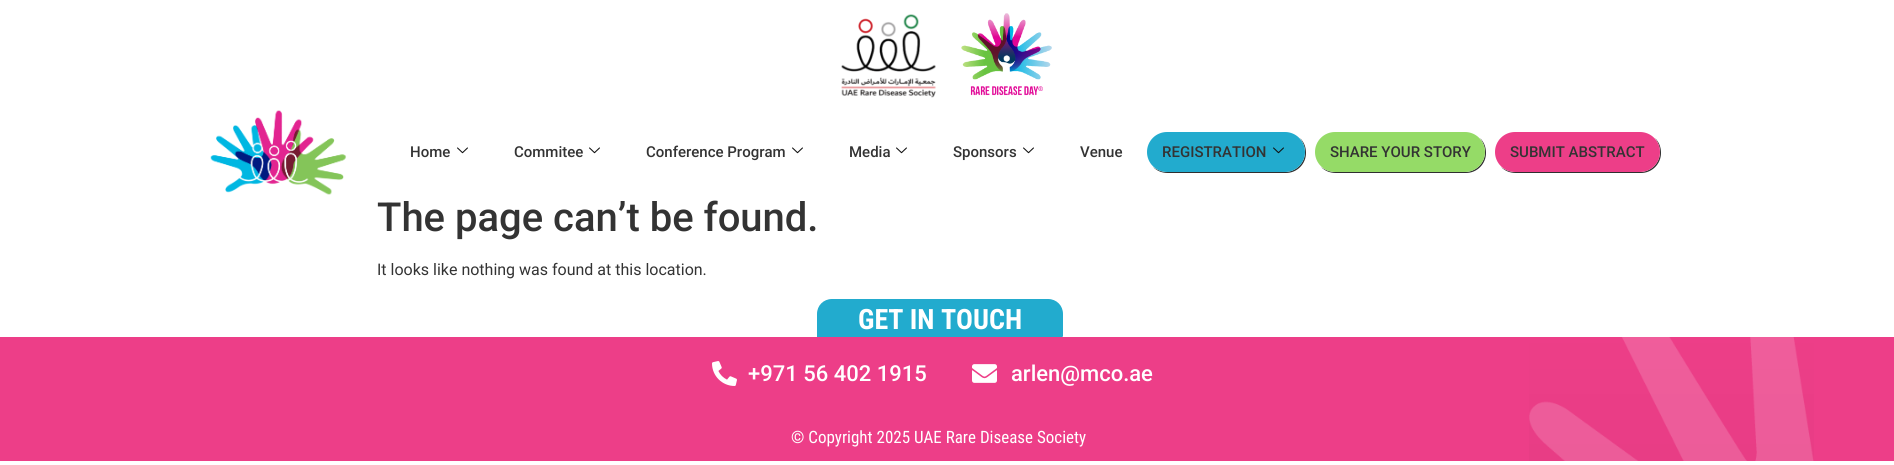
import math
import cairo

surface = cairo.ImageSurface(cairo.FORMAT_RGB24, 1894, 465)
ctx = cairo.Context(surface)
options = cairo.FontOptions()
options.set_hint_metrics(cairo.HINT_METRICS_OFF)
options.set_hint_style(cairo.HINT_STYLE_NONE)
ctx.set_font_options(options)
ctx.set_miter_limit(4)


def round_rect(x, y, w, h, r):
    ctx.new_sub_path()
    for i, (u, v) in enumerate([(x + w - r, y + h - r), (x + r, y + h - r), (x + r, y + r), (x + w - r, y + r)]):
        ctx.arc(u, v, r, i * math.pi / 2, (i + 1) * math.pi / 2)
    ctx.close_path()


def picture(path, x, y, w, h):
    ctx.save()
    ctx.set_source_surface(cairo.ImageSurface.create_from_png(path), x, y)
    ctx.rectangle(x, y, w, h)
    ctx.fill()
    ctx.restore()


ctx.set_source_rgb(1, 1, 1)
ctx.paint()
picture("img1.png", 841, 14, 95, 84)
picture("img2.png", 961, 13, 91, 83)
picture("img3.png", 210, 110, 137, 85)
ctx.select_font_face("Roboto Medium")
ctx.set_font_size(15)
ctx.set_source_rgb(0.2, 0.2, 0.2)
ctx.move_to(410, 157)
ctx.show_text("Home")
picture("img4.png", 457, 147, 11, 7)
ctx.move_to(514, 157)
ctx.show_text("Commitee")
picture("img4.png", 589, 147, 11, 7)
ctx.move_to(646, 157)
ctx.show_text("Conference Program")
picture("img4.png", 792, 147, 11, 7)
ctx.move_to(849, 157)
ctx.show_text("Media")
picture("img4.png", 896, 147, 11, 7)
ctx.move_to(953, 157)
ctx.show_text("Sponsors")
picture("img4.png", 1023, 147, 11, 7)
ctx.move_to(1080, 157)
ctx.show_text("Venue")
ctx.set_source_rgb(0.184, 0.184, 0.184)
ctx.new_path()
ctx.move_to(1153, 167)
ctx.curve_to(1157, 171, 1162, 173, 1168, 173)
ctx.line_to(1286, 173)
ctx.curve_to(1297, 173, 1306, 164, 1306, 153)
ctx.curve_to(1306, 147, 1304, 142, 1300, 138)
ctx.curve_to(1303, 142, 1305, 147, 1305, 152)
ctx.curve_to(1305, 163, 1296, 172, 1285, 172)
ctx.line_to(1167, 172)
ctx.curve_to(1162, 172, 1157, 170, 1153, 167)
ctx.close_path()
ctx.fill()
ctx.set_source_rgb(0.133, 0.671, 0.808)
round_rect(1147, 132, 158, 40, 20)
ctx.fill()
ctx.set_source_rgb(0.2, 0.2, 0.2)
ctx.move_to(1162, 157)
ctx.show_text("REGISTRATION")
picture("img5.png", 1273, 147, 11, 7)
ctx.set_source_rgb(0.184, 0.184, 0.184)
ctx.new_path()
ctx.move_to(1321, 167)
ctx.curve_to(1325, 171, 1330, 173, 1336, 173)
ctx.line_to(1466, 173)
ctx.curve_to(1477, 173, 1486, 164, 1486, 153)
ctx.curve_to(1486, 147, 1484, 142, 1480, 138)
ctx.curve_to(1483, 142, 1485, 147, 1485, 152)
ctx.curve_to(1485, 163, 1476, 172, 1465, 172)
ctx.line_to(1335, 172)
ctx.curve_to(1330, 172, 1325, 170, 1321, 167)
ctx.close_path()
ctx.fill()
ctx.set_source_rgb(0.584, 0.859, 0.404)
round_rect(1315, 132, 170, 40, 20)
ctx.fill()
ctx.set_source_rgb(0.2, 0.2, 0.2)
ctx.move_to(1330, 157)
ctx.show_text("SHARE YOUR STORY")
ctx.set_source_rgb(0.184, 0.184, 0.184)
ctx.new_path()
ctx.move_to(1501, 167)
ctx.curve_to(1505, 171, 1510, 173, 1516, 173)
ctx.line_to(1641, 173)
ctx.curve_to(1652, 173, 1661, 164, 1661, 153)
ctx.curve_to(1661, 147, 1659, 142, 1655, 138)
ctx.curve_to(1658, 142, 1660, 147, 1660, 152)
ctx.curve_to(1660, 163, 1651, 172, 1640, 172)
ctx.line_to(1515, 172)
ctx.curve_to(1510, 172, 1505, 170, 1501, 167)
ctx.close_path()
ctx.fill()
ctx.set_source_rgb(0.929, 0.243, 0.533)
round_rect(1495, 132, 165, 40, 20)
ctx.fill()
ctx.set_source_rgb(0.2, 0.2, 0.2)
ctx.move_to(1510, 157)
ctx.show_text("SUBMIT ABSTRACT")
ctx.set_font_size(40)
ctx.move_to(377, 231)
ctx.show_text("The page can’t be found.")
ctx.select_font_face("Roboto")
ctx.set_font_size(16)
ctx.move_to(377, 275)
ctx.show_text("It looks like nothing was found at this location.")
ctx.set_source_rgb(0.133, 0.671, 0.808)
ctx.new_path()
ctx.move_to(832, 299)
ctx.line_to(1048, 299)
ctx.curve_to(1056.5, 299, 1063, 305.5, 1063, 314)
ctx.line_to(1063, 336)
ctx.curve_to(1063, 336.5, 1062.5, 337, 1062, 337)
ctx.line_to(817, 337)
ctx.line_to(817, 314)
ctx.curve_to(817, 305.5, 823.5, 299, 832, 299)
ctx.close_path()
ctx.fill()
ctx.select_font_face("Roboto Condensed", cairo.FONT_SLANT_NORMAL, cairo.FONT_WEIGHT_BOLD)
ctx.set_font_size(28)
ctx.set_source_rgb(1, 1, 1)
ctx.move_to(858, 329)
ctx.show_text("GET IN TOUCH")
ctx.set_source_rgb(0.929, 0.243, 0.533)
ctx.rectangle(0, 337, 1894, 124)
ctx.fill()
picture("img6.png", 1529, 337, 285, 124)
picture("img7.png", 712, 361, 25, 25)
ctx.select_font_face("Roboto Medium")
ctx.set_font_size(22)
ctx.set_source_rgb(1, 1, 1)
ctx.move_to(748, 381)
ctx.show_text("+971 56 402 1915")
picture("img8.png", 972, 364, 25, 19)
ctx.move_to(1011, 381)
ctx.show_text("arlen@mco.ae")
ctx.select_font_face("Roboto Condensed")
ctx.set_font_size(17)
ctx.move_to(791, 443)
ctx.show_text("© Copyright 2025 UAE Rare Disease Society")
surface.write_to_png("page.png")
